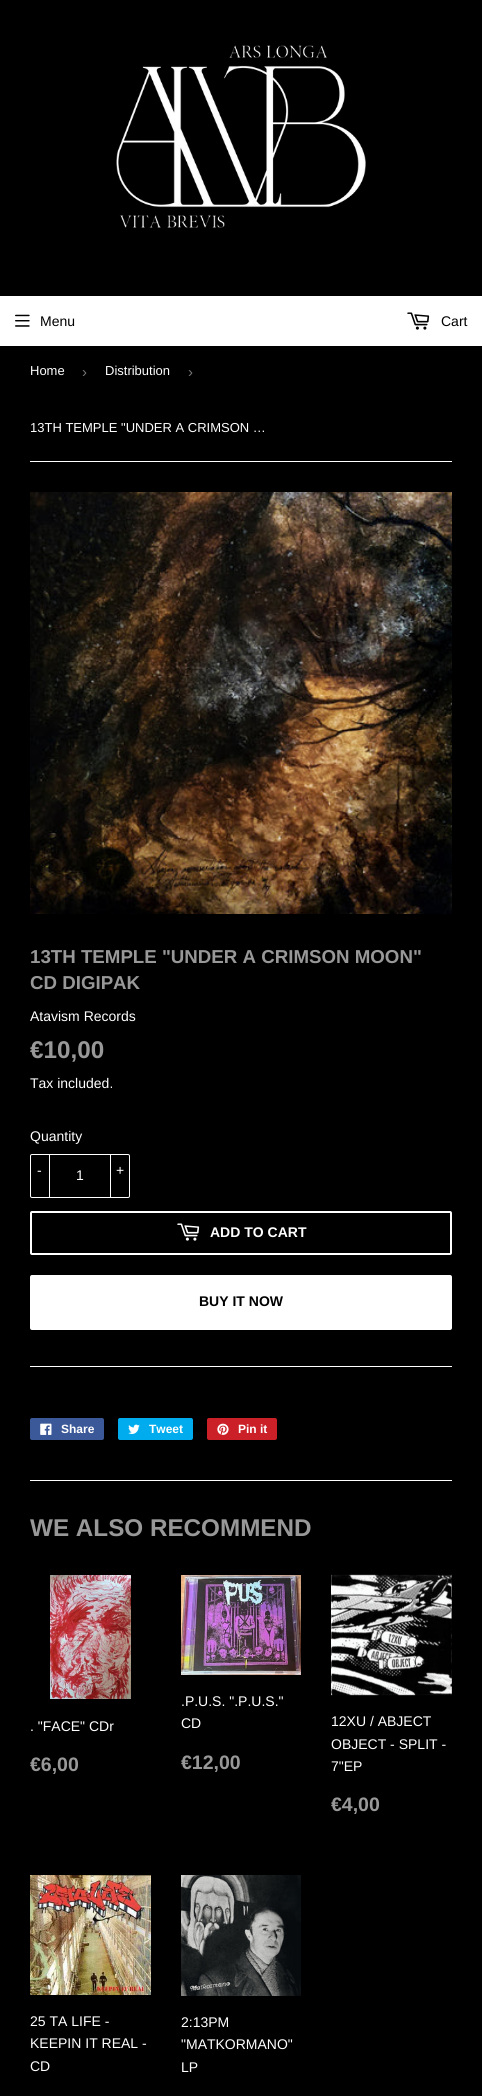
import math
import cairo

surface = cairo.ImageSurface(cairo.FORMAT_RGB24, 482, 2096)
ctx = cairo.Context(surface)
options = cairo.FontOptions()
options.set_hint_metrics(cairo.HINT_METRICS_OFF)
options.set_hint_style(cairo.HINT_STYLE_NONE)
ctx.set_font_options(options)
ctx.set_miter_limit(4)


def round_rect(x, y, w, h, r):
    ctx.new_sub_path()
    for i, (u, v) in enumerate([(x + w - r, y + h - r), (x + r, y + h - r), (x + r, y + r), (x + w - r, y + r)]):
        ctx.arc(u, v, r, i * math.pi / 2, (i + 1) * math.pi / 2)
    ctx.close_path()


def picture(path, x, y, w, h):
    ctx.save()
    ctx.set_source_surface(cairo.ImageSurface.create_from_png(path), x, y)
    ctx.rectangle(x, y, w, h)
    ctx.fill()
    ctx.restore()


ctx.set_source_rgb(0, 0, 0)
ctx.paint()
picture("img1.png", 116, 45, 250, 183)
ctx.set_source_rgb(1, 1, 1)
ctx.rectangle(0, 296, 482, 50)
ctx.fill()
picture("img2.png", 15, 314, 15, 13)
ctx.select_font_face("Liberation Sans")
ctx.set_font_size(14)
ctx.set_source_rgb(0, 0, 0)
ctx.move_to(40, 326)
ctx.show_text("Menu")
picture("img3.png", 407, 312, 23, 18)
ctx.move_to(441, 326)
ctx.show_text("Cart")
ctx.set_source_rgb(1, 1, 1)
ctx.rectangle(30, 461, 422, 1)
ctx.fill()
ctx.set_font_size(13)
ctx.move_to(30, 375)
ctx.show_text("Home")
ctx.set_font_size(15)
ctx.set_source_rgb(0.463, 0.463, 0.463)
ctx.move_to(82, 377)
ctx.show_text("›")
ctx.set_font_size(13)
ctx.set_source_rgb(1, 1, 1)
ctx.move_to(105, 375)
ctx.show_text("Distribution")
ctx.set_font_size(15)
ctx.set_source_rgb(0.463, 0.463, 0.463)
ctx.move_to(188, 377)
ctx.show_text("›")
ctx.set_font_size(13)
ctx.set_source_rgb(1, 1, 1)
ctx.move_to(30, 432)
ctx.show_text("13TH TEMPLE \"UNDER A CRIMSON …")
picture("img4.png", 30, 492, 422, 422)
ctx.select_font_face("Liberation Sans", cairo.FONT_SLANT_NORMAL, cairo.FONT_WEIGHT_BOLD)
ctx.set_font_size(18.7)
ctx.set_source_rgb(0.596, 0.596, 0.596)
ctx.move_to(30, 963)
ctx.show_text("13TH TEMPLE \"UNDER A CRIMSON MOON\"")
ctx.move_to(30, 989)
ctx.show_text("CD DIGIPAK")
ctx.select_font_face("Liberation Sans")
ctx.set_font_size(14)
ctx.set_source_rgb(1, 1, 1)
ctx.move_to(30, 1021)
ctx.show_text("Atavism Records")
ctx.select_font_face("Liberation Sans", cairo.FONT_SLANT_NORMAL, cairo.FONT_WEIGHT_BOLD)
ctx.set_font_size(24.25)
ctx.set_source_rgb(0.596, 0.596, 0.596)
ctx.move_to(30, 1058)
ctx.show_text("€10,00")
ctx.select_font_face("Liberation Sans")
ctx.set_font_size(14)
ctx.set_source_rgb(1, 1, 1)
ctx.move_to(30, 1088)
ctx.show_text("Tax included.")
ctx.move_to(30, 1141)
ctx.show_text("Quantity")
round_rect(30.5, 1154.5, 99, 43, 1.5)
ctx.set_line_width(1)
ctx.stroke()
ctx.rectangle(49, 1154, 1, 44)
ctx.fill()
ctx.move_to(37, 1175)
ctx.show_text("-")
ctx.move_to(76, 1180)
ctx.show_text("1")
ctx.rectangle(110, 1154, 1, 44)
ctx.fill()
ctx.move_to(116, 1175)
ctx.show_text("+")
round_rect(31, 1212, 420, 42, 1)
ctx.set_line_width(2)
ctx.stroke()
picture("img5.png", 177, 1223, 23, 18)
ctx.select_font_face("Liberation Sans", cairo.FONT_SLANT_NORMAL, cairo.FONT_WEIGHT_BOLD)
ctx.move_to(210, 1237)
ctx.show_text("ADD TO CART")
round_rect(30, 1275, 422, 55, 2)
ctx.fill()
ctx.set_source_rgb(0, 0, 0)
ctx.move_to(199, 1306)
ctx.show_text("BUY IT NOW")
ctx.set_source_rgb(1, 1, 1)
ctx.rectangle(30, 1366, 422, 1)
ctx.fill()
ctx.set_source_rgb(0.231, 0.349, 0.596)
round_rect(30, 1418, 74, 22, 2)
ctx.fill()
picture("img6.png", 40, 1423, 12, 12)
ctx.set_font_size(12)
ctx.set_source_rgb(1, 1, 1)
ctx.move_to(61, 1433)
ctx.show_text("Share")
ctx.set_source_rgb(0, 0.675, 0.929)
round_rect(118, 1418, 75, 22, 2)
ctx.fill()
picture("img7.png", 128, 1424, 12, 10)
ctx.set_source_rgb(1, 1, 1)
ctx.move_to(149, 1433)
ctx.show_text("Tweet")
ctx.set_source_rgb(0.796, 0.125, 0.153)
round_rect(207, 1418, 70, 22, 2)
ctx.fill()
picture("img8.png", 217, 1423, 12, 12)
ctx.set_source_rgb(1, 1, 1)
ctx.move_to(238, 1433)
ctx.show_text("Pin it")
ctx.rectangle(30, 1480, 422, 1)
ctx.fill()
ctx.set_font_size(24.25)
ctx.set_source_rgb(0.596, 0.596, 0.596)
ctx.move_to(30, 1536)
ctx.show_text("WE ALSO RECOMMEND")
picture("img9.png", 50, 1575, 81, 124)
ctx.select_font_face("Liberation Sans")
ctx.set_font_size(14)
ctx.set_source_rgb(1, 1, 1)
ctx.move_to(30, 1731)
ctx.show_text(". \"FACE\" CDr")
ctx.select_font_face("Liberation Sans", cairo.FONT_SLANT_NORMAL, cairo.FONT_WEIGHT_BOLD)
ctx.set_font_size(19.5)
ctx.set_source_rgb(0.596, 0.596, 0.596)
ctx.move_to(30, 1771)
ctx.show_text("€6,00")
picture("img10.png", 181, 1575, 120, 100)
ctx.select_font_face("Liberation Sans")
ctx.set_font_size(14)
ctx.set_source_rgb(1, 1, 1)
ctx.move_to(181, 1706)
ctx.show_text(".P.U.S. \".P.U.S.\"")
ctx.move_to(181, 1728)
ctx.show_text("CD")
ctx.select_font_face("Liberation Sans", cairo.FONT_SLANT_NORMAL, cairo.FONT_WEIGHT_BOLD)
ctx.set_font_size(19.5)
ctx.set_source_rgb(0.596, 0.596, 0.596)
ctx.move_to(181, 1769)
ctx.show_text("€12,00")
picture("img11.png", 331, 1574, 121, 122)
ctx.select_font_face("Liberation Sans")
ctx.set_font_size(14)
ctx.set_source_rgb(1, 1, 1)
ctx.move_to(331, 1726)
ctx.show_text("12XU / ABJECT")
ctx.move_to(331, 1749)
ctx.show_text("OBJECT - SPLIT -")
ctx.move_to(331, 1771)
ctx.show_text("7\"EP")
ctx.select_font_face("Liberation Sans", cairo.FONT_SLANT_NORMAL, cairo.FONT_WEIGHT_BOLD)
ctx.set_font_size(19.5)
ctx.set_source_rgb(0.596, 0.596, 0.596)
ctx.move_to(331, 1811)
ctx.show_text("€4,00")
picture("img12.png", 30, 1875, 121, 120)
ctx.select_font_face("Liberation Sans")
ctx.set_font_size(14)
ctx.set_source_rgb(1, 1, 1)
ctx.move_to(30, 2026)
ctx.show_text("25 TA LIFE -")
ctx.move_to(30, 2048)
ctx.show_text("KEEPIN IT REAL -")
ctx.move_to(30, 2071)
ctx.show_text("CD")
picture("img13.png", 181, 1875, 120, 121)
ctx.move_to(181, 2027)
ctx.show_text("2:13PM")
ctx.move_to(181, 2049)
ctx.show_text("\"MATKORMANO\"")
ctx.move_to(181, 2072)
ctx.show_text("LP")
surface.write_to_png("page.png")
